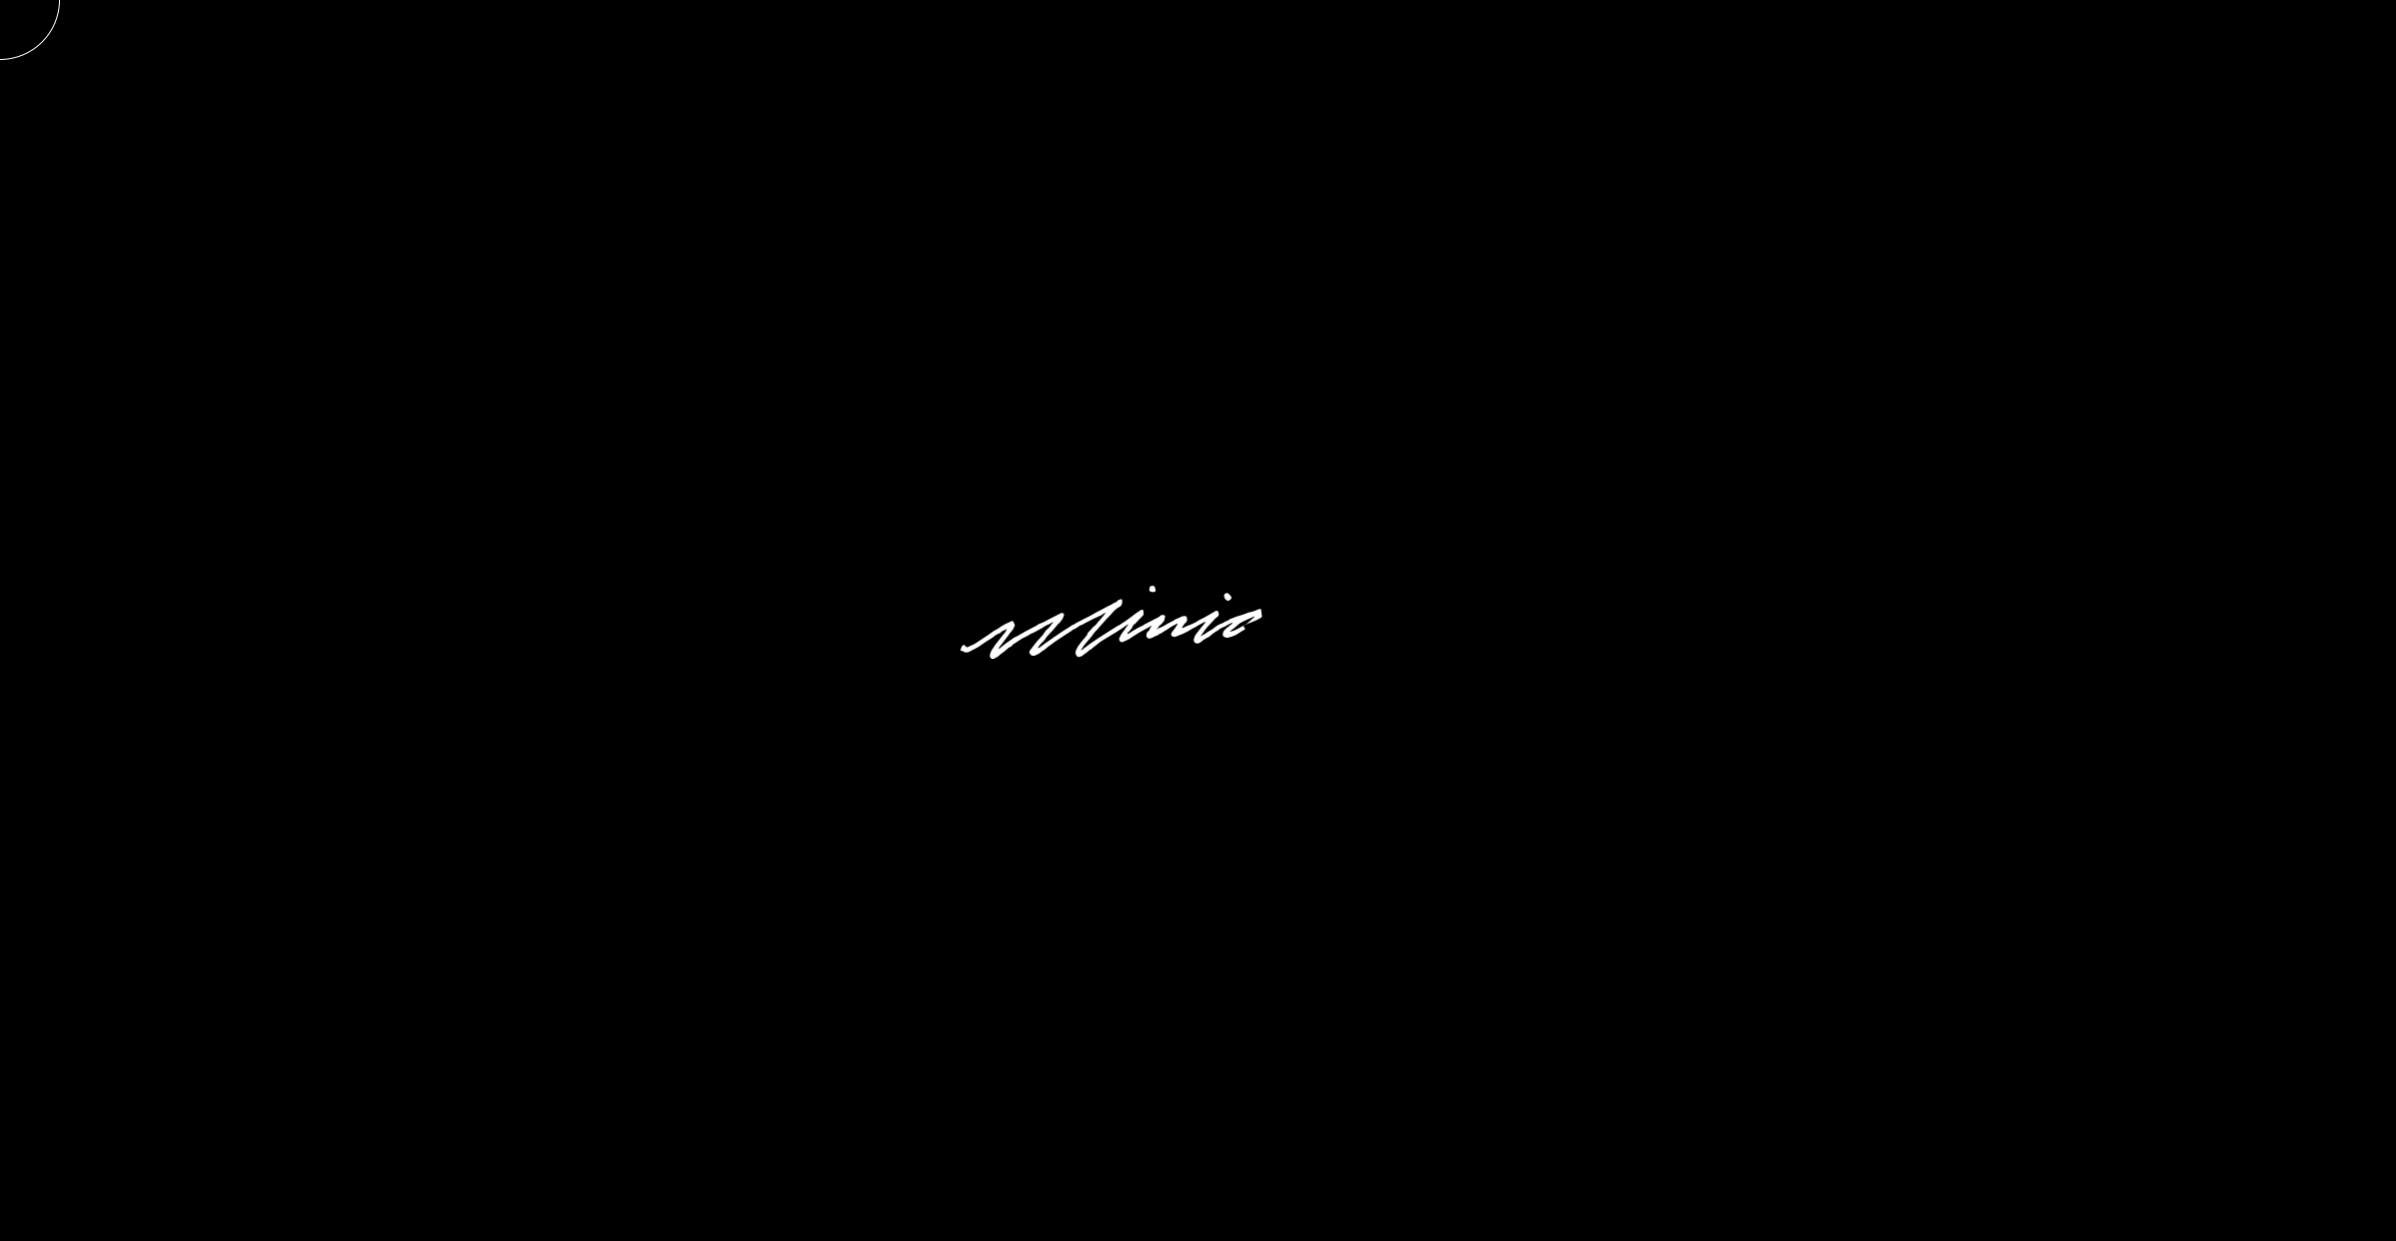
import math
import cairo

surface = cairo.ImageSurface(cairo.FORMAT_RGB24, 2396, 1241)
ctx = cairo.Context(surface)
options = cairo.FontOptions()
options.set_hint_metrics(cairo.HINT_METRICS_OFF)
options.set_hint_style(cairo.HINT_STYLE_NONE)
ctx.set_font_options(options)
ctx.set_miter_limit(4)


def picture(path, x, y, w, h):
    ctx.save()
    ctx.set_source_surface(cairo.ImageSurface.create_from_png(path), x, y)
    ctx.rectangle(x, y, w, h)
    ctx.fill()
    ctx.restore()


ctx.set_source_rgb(0, 0, 0)
ctx.paint()
ctx.arc(0, 0, 59.5, 0, 2 * math.pi)
ctx.set_source_rgb(1, 1, 1)
ctx.set_line_width(1)
ctx.stroke()
picture("img1.png", 960, 585, 303, 74)
surface.write_to_png("page.png")
